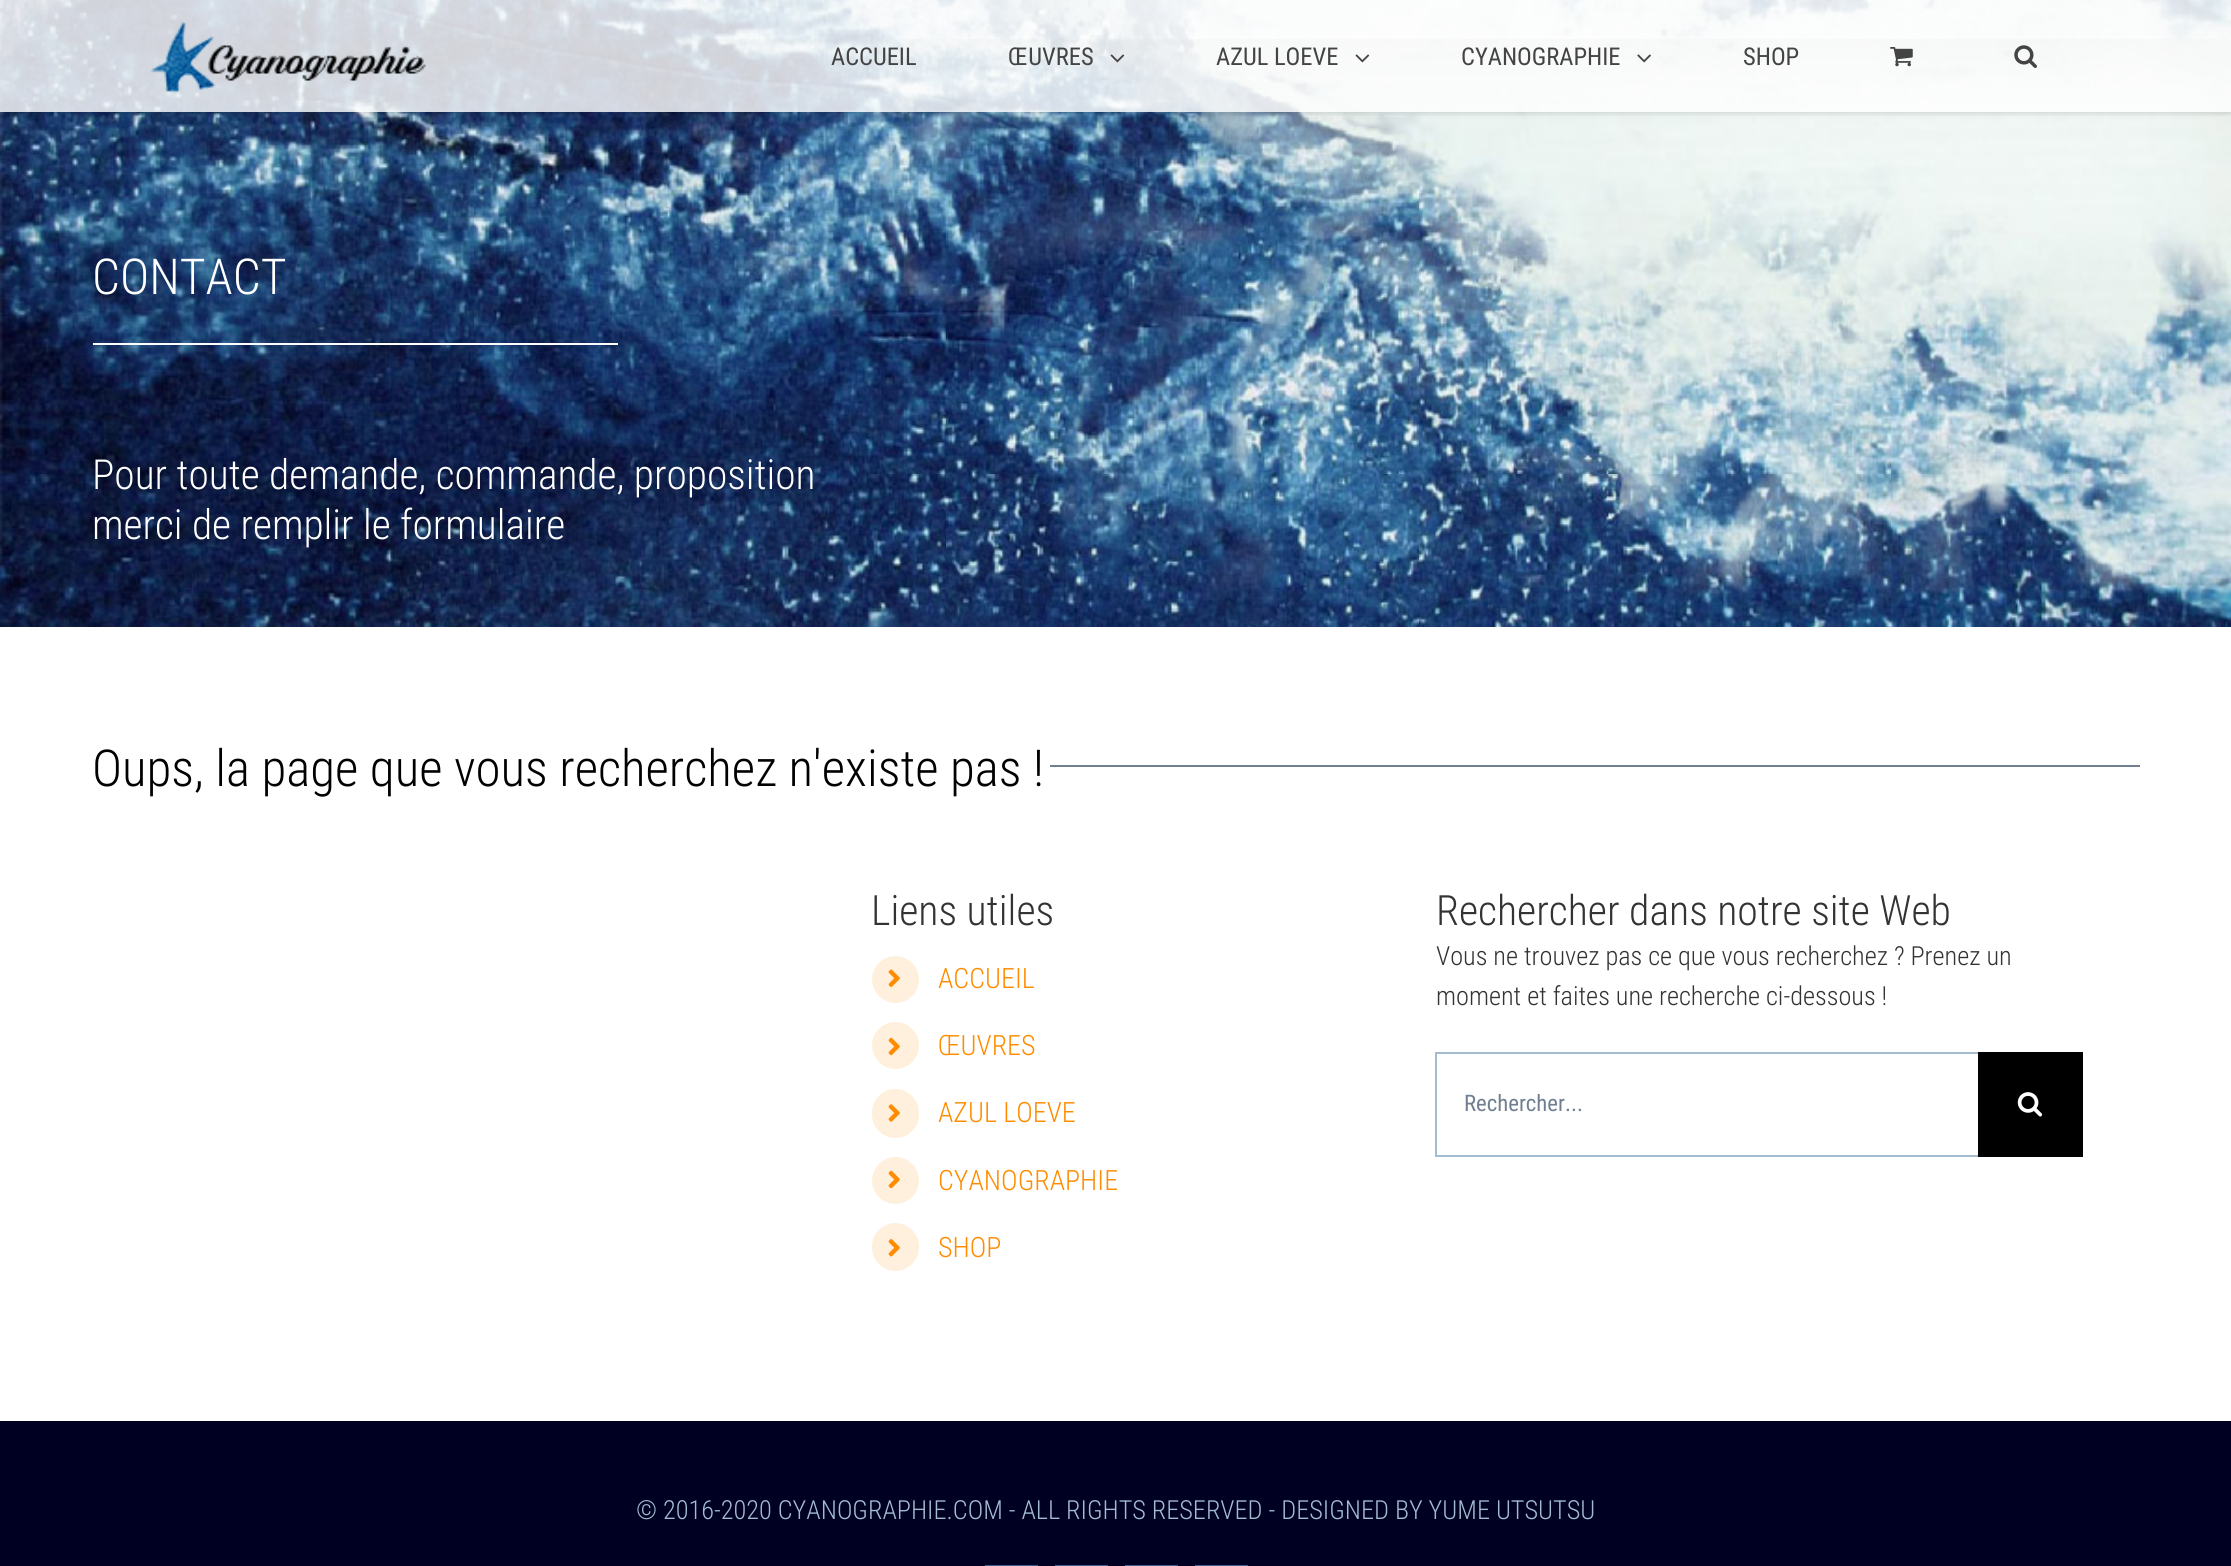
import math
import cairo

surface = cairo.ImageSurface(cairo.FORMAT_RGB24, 2231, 1566)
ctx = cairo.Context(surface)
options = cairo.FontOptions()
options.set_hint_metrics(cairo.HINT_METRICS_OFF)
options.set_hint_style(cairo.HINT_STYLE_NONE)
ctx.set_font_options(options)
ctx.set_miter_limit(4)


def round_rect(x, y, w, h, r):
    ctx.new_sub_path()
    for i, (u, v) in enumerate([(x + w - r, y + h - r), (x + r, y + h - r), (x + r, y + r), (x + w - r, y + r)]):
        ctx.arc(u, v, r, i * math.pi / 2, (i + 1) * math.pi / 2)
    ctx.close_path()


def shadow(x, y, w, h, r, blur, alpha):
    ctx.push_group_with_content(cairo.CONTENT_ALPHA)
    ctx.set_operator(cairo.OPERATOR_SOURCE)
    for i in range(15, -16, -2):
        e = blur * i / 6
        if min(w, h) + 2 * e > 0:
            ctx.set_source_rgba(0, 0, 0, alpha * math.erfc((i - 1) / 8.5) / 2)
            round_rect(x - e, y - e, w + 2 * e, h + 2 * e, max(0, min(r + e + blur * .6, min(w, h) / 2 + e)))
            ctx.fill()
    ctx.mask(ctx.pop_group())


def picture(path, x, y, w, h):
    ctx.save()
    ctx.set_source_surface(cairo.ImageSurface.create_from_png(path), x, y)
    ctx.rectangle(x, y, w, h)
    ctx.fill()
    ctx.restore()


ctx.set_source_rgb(1, 1, 1)
ctx.paint()
picture("img7.png", 0, 0, 2231, 627)
ctx.save()
ctx.set_fill_rule(cairo.FILL_RULE_EVEN_ODD)
ctx.new_path()
ctx.move_to(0, 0)
ctx.line_to(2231, 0)
ctx.line_to(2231, 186)
ctx.line_to(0, 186)
ctx.close_path()
ctx.move_to(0, -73)
ctx.line_to(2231, -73)
ctx.line_to(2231, 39)
ctx.line_to(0, 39)
ctx.close_path()
ctx.clip()
ctx.set_source_rgb(0, 0, 0)
shadow(4, -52, 2224, 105, 0, 44, 0.14)
ctx.restore()
ctx.save()
ctx.rectangle(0, 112, 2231, 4)
ctx.clip()
ctx.set_source_rgb(0, 0, 0)
shadow(0, 2, 2231, 112, 0, 2.5, 0.12)
ctx.restore()
ctx.set_source_rgba(1, 1, 1, 0.81)
ctx.rectangle(0, 0, 2231, 112)
ctx.fill()
picture("img1.png", 150, 21, 276, 72)
ctx.select_font_face("Roboto Condensed")
ctx.set_font_size(24.5)
ctx.set_source_rgb(0.267, 0.267, 0.267)
ctx.move_to(831, 65)
ctx.show_text("ACCUEIL")
ctx.move_to(1008, 65)
ctx.show_text("ŒUVRES")
picture("img2.png", 1110, 54, 15, 9)
ctx.move_to(1216, 65)
ctx.show_text("AZUL LOEVE")
picture("img3.png", 1355, 54, 15, 9)
ctx.move_to(1461, 65)
ctx.show_text("CYANOGRAPHIE")
picture("img4.png", 1637, 54, 14, 9)
ctx.move_to(1743, 65)
ctx.show_text("SHOP")
picture("img5.png", 1890, 47, 23, 20)
picture("img6.png", 2014, 45, 23, 23)
ctx.select_font_face("Roboto Condensed Light")
ctx.set_font_size(49.5)
ctx.set_source_rgb(1, 1, 1)
ctx.move_to(92, 294)
ctx.show_text("CONTACT")
ctx.rectangle(93, 343, 525, 2)
ctx.fill()
ctx.set_font_size(41.4)
ctx.move_to(92, 489)
ctx.show_text("Pour toute demande, commande, proposition")
ctx.move_to(92, 539)
ctx.show_text("merci de remplir le formulaire")
ctx.set_font_size(50.9)
ctx.set_source_rgb(0, 0, 0)
ctx.move_to(92, 786)
ctx.show_text("Oups, la page que vous recherchez n'existe pas !")
ctx.set_source_rgb(0.439, 0.502, 0.565)
ctx.rectangle(1050, 765, 1090, 2)
ctx.fill()
ctx.set_font_size(41.75)
ctx.set_source_rgb(0.2, 0.2, 0.2)
ctx.move_to(871, 925)
ctx.show_text("Liens utiles")
ctx.set_source_rgb(1, 0.941, 0.871)
ctx.new_path()
ctx.arc(895.5, 979.5, 23.5, 0, 2 * math.pi)
ctx.fill()
picture("img8.png", 888, 969, 12, 18)
ctx.set_font_size(28)
ctx.set_source_rgb(1, 0.549, 0)
ctx.move_to(938, 988)
ctx.show_text("ACCUEIL")
ctx.set_source_rgb(1, 0.941, 0.871)
ctx.new_path()
ctx.arc(895.5, 1045.5, 23.5, 0, 2 * math.pi)
ctx.fill()
picture("img9.png", 888, 1037, 12, 19)
ctx.set_source_rgb(1, 0.549, 0)
ctx.move_to(938, 1055)
ctx.show_text("ŒUVRES")
ctx.set_source_rgb(1, 0.941, 0.871)
round_rect(872, 1089, 47, 49, 23.5)
ctx.fill()
picture("img10.png", 888, 1104, 12, 18)
ctx.set_source_rgb(1, 0.549, 0)
ctx.move_to(938, 1122)
ctx.show_text("AZUL LOEVE")
ctx.set_source_rgb(1, 0.941, 0.871)
ctx.new_path()
ctx.arc(895.5, 1180.5, 23.5, 0, 2 * math.pi)
ctx.fill()
picture("img9.png", 888, 1170, 12, 19)
ctx.set_source_rgb(1, 0.549, 0)
ctx.move_to(938, 1190)
ctx.show_text("CYANOGRAPHIE")
ctx.set_source_rgb(1, 0.941, 0.871)
round_rect(872, 1223, 47, 48, 23.5)
ctx.fill()
picture("img11.png", 888, 1239, 12, 18)
ctx.set_source_rgb(1, 0.549, 0)
ctx.move_to(938, 1257)
ctx.show_text("SHOP")
ctx.set_font_size(41.75)
ctx.set_source_rgb(0.2, 0.2, 0.2)
ctx.move_to(1436, 925)
ctx.show_text("Rechercher dans notre site Web")
ctx.set_font_size(26.25)
ctx.move_to(1436, 965)
ctx.show_text("Vous ne trouvez pas ce que vous recherchez ? Prenez un")
ctx.move_to(1436, 1005)
ctx.show_text("moment et faites une recherche ci-dessous !")
ctx.set_source_rgb(0.639, 0.737, 0.82)
ctx.rectangle(1435, 1052, 543, 2)
ctx.fill()
ctx.rectangle(1435, 1155, 543, 2)
ctx.fill()
ctx.rectangle(1435, 1052, 2, 105)
ctx.fill()
ctx.select_font_face("Roboto Condensed")
ctx.set_font_size(22.75)
ctx.set_source_rgb(0.439, 0.502, 0.565)
ctx.move_to(1464, 1111)
ctx.show_text("Rechercher...")
ctx.set_source_rgb(0, 0, 0)
ctx.rectangle(1978, 1052, 105, 105)
ctx.fill()
picture("img12.png", 2017, 1092, 26, 25)
ctx.set_source_rgb(0, 0, 0.133)
ctx.rectangle(0, 1421, 2231, 145)
ctx.fill()
ctx.select_font_face("Roboto Condensed Light")
ctx.set_font_size(26.25)
ctx.set_source_rgb(0.639, 0.737, 0.82)
ctx.move_to(636, 1519)
ctx.show_text("© 2016-2020 CYANOGRAPHIE.COM - ALL RIGHTS RESERVED - DESIGNED BY YUME UTSUTSU")
ctx.rectangle(986, 1566, 51, 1)
ctx.set_source_rgb(0.204, 0.376, 0.557)
ctx.stroke()
ctx.rectangle(1056, 1566, 51, 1)
ctx.stroke()
ctx.rectangle(1126, 1566, 51, 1)
ctx.stroke()
ctx.rectangle(1196, 1566, 51, 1)
ctx.stroke()
surface.write_to_png("page.png")
